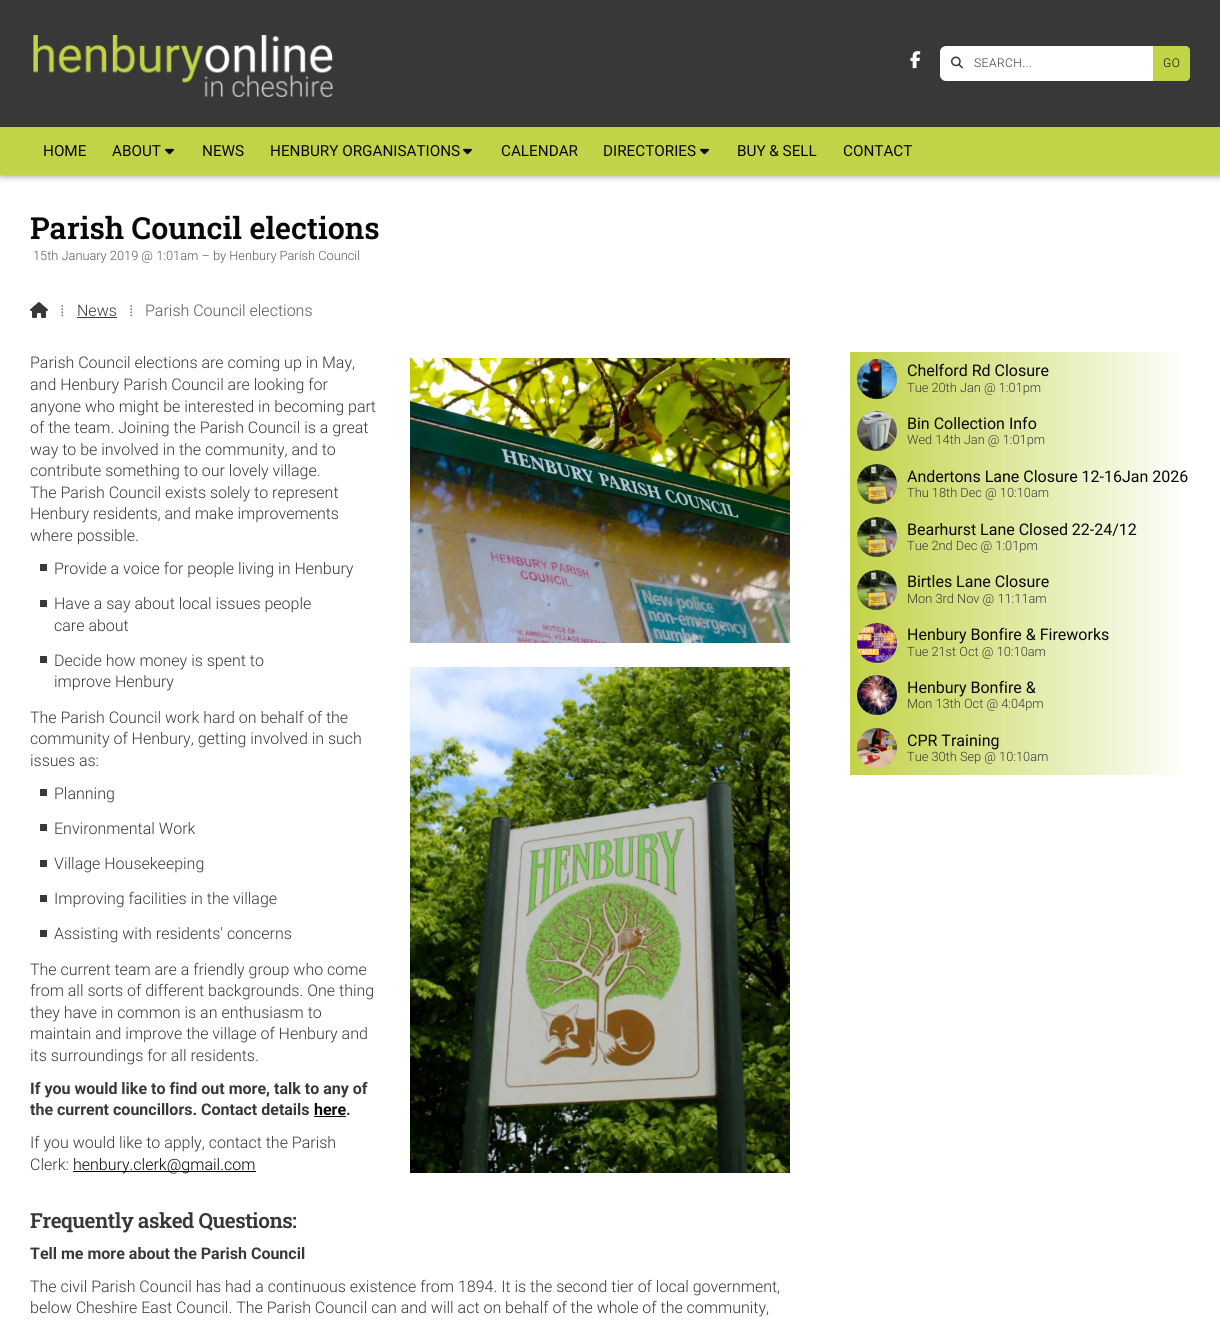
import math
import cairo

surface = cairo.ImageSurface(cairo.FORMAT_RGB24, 1220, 1328)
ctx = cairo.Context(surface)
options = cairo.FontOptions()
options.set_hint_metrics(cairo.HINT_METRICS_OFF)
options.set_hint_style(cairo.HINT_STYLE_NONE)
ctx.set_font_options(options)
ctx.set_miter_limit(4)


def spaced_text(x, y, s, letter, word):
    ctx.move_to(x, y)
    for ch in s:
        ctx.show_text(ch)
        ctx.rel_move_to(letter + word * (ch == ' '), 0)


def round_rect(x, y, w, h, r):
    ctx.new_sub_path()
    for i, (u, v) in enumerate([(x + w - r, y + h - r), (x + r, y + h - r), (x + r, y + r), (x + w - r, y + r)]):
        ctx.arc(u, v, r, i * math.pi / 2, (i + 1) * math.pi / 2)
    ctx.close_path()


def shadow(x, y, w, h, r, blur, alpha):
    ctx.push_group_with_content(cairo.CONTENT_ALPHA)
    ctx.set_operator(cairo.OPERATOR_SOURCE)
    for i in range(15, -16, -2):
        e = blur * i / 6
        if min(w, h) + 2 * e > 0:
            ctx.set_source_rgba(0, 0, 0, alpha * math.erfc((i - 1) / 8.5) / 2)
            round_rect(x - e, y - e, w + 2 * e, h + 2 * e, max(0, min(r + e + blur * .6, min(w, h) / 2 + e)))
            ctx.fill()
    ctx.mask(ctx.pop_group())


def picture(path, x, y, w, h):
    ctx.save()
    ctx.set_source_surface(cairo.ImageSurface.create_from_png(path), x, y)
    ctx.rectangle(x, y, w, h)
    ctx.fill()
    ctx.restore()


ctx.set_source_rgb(1, 1, 1)
ctx.paint()
ctx.set_source_rgb(0, 0, 0)
shadow(0, 0, 1220, 175, 0, 4, 0.5)
ctx.set_source_rgb(0.22, 0.22, 0.22)
ctx.rectangle(0, 0, 1220, 127)
ctx.fill()
picture("img1.png", 33, 35, 300, 62)
picture("img2.png", 910, 51, 11, 18)
ctx.set_source_rgb(1, 1, 1)
round_rect(940, 46, 250, 35, 6)
ctx.fill()
picture("img3.png", 951, 56, 12, 13)
ctx.select_font_face("Roboto Light")
ctx.set_font_size(12)
ctx.set_source_rgb(0.22, 0.22, 0.22)
spaced_text(974, 67, "SEARCH...", 0.5, 0)
ctx.set_source_rgb(0.761, 0.827, 0.278)
ctx.new_path()
ctx.move_to(1153, 46)
ctx.line_to(1186, 46)
ctx.curve_to(1188, 46, 1190, 48, 1190, 50)
ctx.line_to(1190, 77)
ctx.curve_to(1190, 79, 1188, 81, 1186, 81)
ctx.line_to(1153, 81)
ctx.close_path()
ctx.fill()
ctx.set_source_rgb(0.035, 0.035, 0.035)
spaced_text(1163, 67, "GO", 0.5, 0)
ctx.set_source_rgb(0.761, 0.827, 0.278)
ctx.rectangle(0, 127, 1220, 48)
ctx.fill()
ctx.select_font_face("Roboto")
ctx.set_font_size(15.25)
ctx.set_source_rgb(0.035, 0.035, 0.035)
ctx.move_to(43, 156)
ctx.show_text("HOME")
ctx.move_to(112, 156)
ctx.show_text("ABOUT")
picture("img4.png", 165, 148, 9, 7)
ctx.move_to(202, 156)
ctx.show_text("NEWS")
ctx.move_to(270, 156)
ctx.show_text("HENBURY ORGANISATIONS")
picture("img4.png", 463, 148, 9, 7)
ctx.move_to(501, 156)
ctx.show_text("CALENDAR")
ctx.move_to(603, 156)
ctx.show_text("DIRECTORIES")
picture("img4.png", 700, 148, 9, 7)
ctx.move_to(737, 156)
ctx.show_text("BUY & SELL")
ctx.move_to(843, 156)
ctx.show_text("CONTACT")
ctx.select_font_face("Roboto Slab SemiBold")
ctx.set_font_size(30.4)
ctx.move_to(30, 239)
ctx.show_text("Parish Council elections")
ctx.select_font_face("Roboto Light")
ctx.set_font_size(12.8)
ctx.set_source_rgb(0.349, 0.349, 0.349)
ctx.move_to(33, 260)
ctx.show_text("15th January 2019 @ 1:01am – by Henbury Parish Council")
picture("img5.png", 30, 302, 18, 16)
ctx.select_font_face("Liberation Serif")
ctx.set_font_size(16)
ctx.set_source_rgb(0.514, 0.514, 0.514)
ctx.move_to(60, 316)
ctx.show_text("⁞")
ctx.select_font_face("Roboto Light")
ctx.set_source_rgb(0.22, 0.22, 0.22)
ctx.move_to(77, 316)
ctx.show_text("News")
ctx.rectangle(77, 317, 40, 1)
ctx.fill()
ctx.select_font_face("Liberation Serif")
ctx.set_source_rgb(0.514, 0.514, 0.514)
ctx.move_to(129, 316)
ctx.show_text("⁞")
ctx.select_font_face("Roboto Light")
ctx.set_source_rgb(0.349, 0.349, 0.349)
ctx.move_to(145, 316)
ctx.show_text("Parish Council elections")
ctx.set_source_rgb(0.22, 0.22, 0.22)
ctx.move_to(30, 368)
ctx.show_text("Parish Council elections are coming up in May,")
ctx.move_to(30, 390)
ctx.show_text("and Henbury Parish Council are looking for")
ctx.move_to(30, 412)
ctx.show_text("anyone who might be interested in becoming part")
ctx.move_to(30, 433)
ctx.show_text("of the team. Joining the Parish Council is a great")
ctx.move_to(30, 455)
ctx.show_text("way to be involved in the community, and to")
ctx.move_to(30, 476)
ctx.show_text("contribute something to our lovely village.")
ctx.move_to(30, 498)
ctx.show_text("The Parish Council exists solely to represent")
ctx.move_to(30, 519)
ctx.show_text("Henbury residents, and make improvements")
ctx.move_to(30, 541)
ctx.show_text("where possible.")
picture("img6.png", 410, 358, 380, 285)
picture("img7.png", 410, 667, 380, 506)
ctx.rectangle(40, 564, 7, 7)
ctx.fill()
ctx.move_to(54, 574)
ctx.show_text("Provide a voice for people living in Henbury")
ctx.rectangle(40, 600, 7, 7)
ctx.fill()
ctx.move_to(54, 609)
ctx.show_text("Have a say about local issues people")
ctx.move_to(54, 631)
ctx.show_text("care about")
ctx.rectangle(40, 656, 7, 7)
ctx.fill()
ctx.move_to(54, 666)
ctx.show_text("Decide how money is spent to")
ctx.move_to(54, 687)
ctx.show_text("improve Henbury")
ctx.move_to(30, 723)
ctx.show_text("The Parish Council work hard on behalf of the")
ctx.move_to(30, 744)
ctx.show_text("community of Henbury, getting involved in such")
ctx.move_to(30, 766)
ctx.show_text("issues as:")
ctx.rectangle(40, 789, 7, 7)
ctx.fill()
ctx.move_to(54, 799)
ctx.show_text("Planning")
ctx.rectangle(40, 824, 7, 7)
ctx.fill()
ctx.move_to(54, 834)
ctx.show_text("Environmental Work")
ctx.rectangle(40, 860, 7, 7)
ctx.fill()
ctx.move_to(54, 869)
ctx.show_text("Village Housekeeping")
ctx.rectangle(40, 895, 7, 7)
ctx.fill()
ctx.move_to(54, 904)
ctx.show_text("Improving facilities in the village")
ctx.rectangle(40, 930, 7, 7)
ctx.fill()
ctx.move_to(54, 939)
ctx.show_text("Assisting with residents' concerns")
ctx.move_to(30, 975)
ctx.show_text("The current team are a friendly group who come")
ctx.move_to(30, 996)
ctx.show_text("from all sorts of different backgrounds. One thing")
ctx.move_to(30, 1018)
ctx.show_text("they have in common is an enthusiasm to")
ctx.move_to(30, 1039)
ctx.show_text("maintain and improve the village of Henbury and")
ctx.move_to(30, 1061)
ctx.show_text("its surroundings for all residents.")
ctx.select_font_face("Roboto", cairo.FONT_SLANT_NORMAL, cairo.FONT_WEIGHT_BOLD)
ctx.move_to(30, 1094)
ctx.show_text("If you would like to find out more, talk to any of")
ctx.move_to(30, 1115)
ctx.show_text("the current councillors. Contact details")
ctx.set_source_rgb(0.035, 0.035, 0.035)
ctx.move_to(314, 1115)
ctx.show_text("here")
ctx.set_source_rgb(0.22, 0.22, 0.22)
ctx.move_to(346, 1115)
ctx.show_text(".")
ctx.set_source_rgb(0.035, 0.035, 0.035)
ctx.rectangle(314, 1116, 32, 1)
ctx.fill()
ctx.select_font_face("Roboto Light")
ctx.set_source_rgb(0.22, 0.22, 0.22)
ctx.move_to(30, 1148)
ctx.show_text("If you would like to apply, contact the Parish")
ctx.move_to(30, 1170)
ctx.show_text("Clerk:")
ctx.set_source_rgb(0.035, 0.035, 0.035)
ctx.rectangle(73, 1171, 183, 1)
ctx.fill()
ctx.move_to(73, 1170)
ctx.show_text("henbury.clerk@gmail.com")
ctx.select_font_face("Roboto Slab SemiBold")
ctx.set_font_size(20.75)
ctx.set_source_rgb(0.22, 0.22, 0.22)
spaced_text(30, 1228, "Frequently asked Questions:", -0.5, 0)
ctx.select_font_face("Roboto", cairo.FONT_SLANT_NORMAL, cairo.FONT_WEIGHT_BOLD)
ctx.set_font_size(16)
ctx.move_to(30, 1259)
ctx.show_text("Tell me more about the Parish Council")
ctx.select_font_face("Roboto Light")
ctx.move_to(30, 1292)
ctx.show_text("The civil Parish Council has had a continuous existence from 1894. It is the second tier of local government,")
ctx.move_to(30, 1313)
ctx.show_text("below Cheshire East Council. The Parish Council can and will act on behalf of the whole of the community,")
gradient = cairo.LinearGradient(850, 379, 1190, 379)
gradient.add_color_stop_rgba(0, 0.761, 0.827, 0.278, 1)
gradient.add_color_stop_rgba(1, 1, 1, 1, 1)
ctx.set_source(gradient)
ctx.rectangle(850, 352, 335, 53)
ctx.fill()
picture("img8.png", 857, 359, 40, 40)
ctx.select_font_face("Roboto")
ctx.set_source_rgb(0.035, 0.035, 0.035)
ctx.move_to(907, 376)
ctx.show_text("Chelford Rd Closure")
ctx.select_font_face("Roboto Light")
ctx.set_font_size(12.8)
ctx.set_source_rgb(0.22, 0.22, 0.22)
ctx.move_to(907, 392)
ctx.show_text("Tue 20th Jan @ 1:01pm")
gradient = cairo.LinearGradient(850, 432, 1190, 432)
gradient.add_color_stop_rgba(0, 0.761, 0.827, 0.278, 1)
gradient.add_color_stop_rgba(1, 1, 1, 1, 1)
ctx.set_source(gradient)
ctx.rectangle(850, 405, 335, 53)
ctx.fill()
picture("img9.png", 857, 411, 40, 40)
ctx.select_font_face("Roboto")
ctx.set_font_size(16)
ctx.set_source_rgb(0.035, 0.035, 0.035)
ctx.move_to(907, 429)
ctx.show_text("Bin Collection Info")
ctx.select_font_face("Roboto Light")
ctx.set_font_size(12.8)
ctx.set_source_rgb(0.22, 0.22, 0.22)
ctx.move_to(907, 444)
ctx.show_text("Wed 14th Jan @ 1:01pm")
gradient = cairo.LinearGradient(850, 485, 1190, 485)
gradient.add_color_stop_rgba(0, 0.761, 0.827, 0.278, 1)
gradient.add_color_stop_rgba(1, 1, 1, 1, 1)
ctx.set_source(gradient)
ctx.rectangle(850, 458, 335, 53)
ctx.fill()
picture("img10.png", 857, 464, 40, 40)
ctx.select_font_face("Roboto")
ctx.set_font_size(16)
ctx.set_source_rgb(0.035, 0.035, 0.035)
ctx.move_to(907, 482)
ctx.show_text("Andertons Lane Closure 12-16Jan 2026")
ctx.select_font_face("Roboto Light")
ctx.set_font_size(12.8)
ctx.set_source_rgb(0.22, 0.22, 0.22)
ctx.move_to(907, 497)
ctx.show_text("Thu 18th Dec @ 10:10am")
gradient = cairo.LinearGradient(850, 537, 1190, 537)
gradient.add_color_stop_rgba(0, 0.761, 0.827, 0.278, 1)
gradient.add_color_stop_rgba(1, 1, 1, 1, 1)
ctx.set_source(gradient)
ctx.rectangle(850, 511, 335, 52)
ctx.fill()
picture("img10.png", 857, 517, 40, 40)
ctx.select_font_face("Roboto")
ctx.set_font_size(16)
ctx.set_source_rgb(0.035, 0.035, 0.035)
ctx.move_to(907, 535)
ctx.show_text("Bearhurst Lane Closed 22-24/12")
ctx.select_font_face("Roboto Light")
ctx.set_font_size(12.8)
ctx.set_source_rgb(0.22, 0.22, 0.22)
ctx.move_to(907, 550)
ctx.show_text("Tue 2nd Dec @ 1:01pm")
gradient = cairo.LinearGradient(850, 590, 1190, 590)
gradient.add_color_stop_rgba(0, 0.761, 0.827, 0.278, 1)
gradient.add_color_stop_rgba(1, 1, 1, 1, 1)
ctx.set_source(gradient)
ctx.rectangle(850, 563, 335, 53)
ctx.fill()
picture("img10.png", 857, 570, 40, 40)
ctx.select_font_face("Roboto")
ctx.set_font_size(16)
ctx.set_source_rgb(0.035, 0.035, 0.035)
ctx.move_to(907, 587)
ctx.show_text("Birtles Lane Closure")
ctx.select_font_face("Roboto Light")
ctx.set_font_size(12.8)
ctx.set_source_rgb(0.22, 0.22, 0.22)
ctx.move_to(907, 603)
ctx.show_text("Mon 3rd Nov @ 11:11am")
gradient = cairo.LinearGradient(850, 643, 1190, 643)
gradient.add_color_stop_rgba(0, 0.761, 0.827, 0.278, 1)
gradient.add_color_stop_rgba(1, 1, 1, 1, 1)
ctx.set_source(gradient)
ctx.rectangle(850, 616, 335, 53)
ctx.fill()
picture("img11.png", 857, 623, 40, 40)
ctx.select_font_face("Roboto")
ctx.set_font_size(16)
ctx.set_source_rgb(0.035, 0.035, 0.035)
ctx.move_to(907, 640)
ctx.show_text("Henbury Bonfire & Fireworks")
ctx.select_font_face("Roboto Light")
ctx.set_font_size(12.8)
ctx.set_source_rgb(0.22, 0.22, 0.22)
ctx.move_to(907, 656)
ctx.show_text("Tue 21st Oct @ 10:10am")
gradient = cairo.LinearGradient(850, 696, 1190, 696)
gradient.add_color_stop_rgba(0, 0.761, 0.827, 0.278, 1)
gradient.add_color_stop_rgba(1, 1, 1, 1, 1)
ctx.set_source(gradient)
ctx.rectangle(850, 669, 335, 53)
ctx.fill()
picture("img12.png", 857, 675, 40, 40)
ctx.select_font_face("Roboto")
ctx.set_font_size(16)
ctx.set_source_rgb(0.035, 0.035, 0.035)
ctx.move_to(907, 693)
ctx.show_text("Henbury Bonfire &")
ctx.select_font_face("Roboto Light")
ctx.set_font_size(12.8)
ctx.set_source_rgb(0.22, 0.22, 0.22)
ctx.move_to(907, 708)
ctx.show_text("Mon 13th Oct @ 4:04pm")
gradient = cairo.LinearGradient(850, 749, 1190, 749)
gradient.add_color_stop_rgba(0, 0.761, 0.827, 0.278, 1)
gradient.add_color_stop_rgba(1, 1, 1, 1, 1)
ctx.set_source(gradient)
ctx.rectangle(850, 722, 335, 53)
ctx.fill()
picture("img13.png", 857, 728, 40, 40)
ctx.select_font_face("Roboto")
ctx.set_font_size(16)
ctx.set_source_rgb(0.035, 0.035, 0.035)
ctx.move_to(907, 746)
ctx.show_text("CPR Training")
ctx.select_font_face("Roboto Light")
ctx.set_font_size(12.8)
ctx.set_source_rgb(0.22, 0.22, 0.22)
ctx.move_to(907, 761)
ctx.show_text("Tue 30th Sep @ 10:10am")
surface.write_to_png("page.png")
